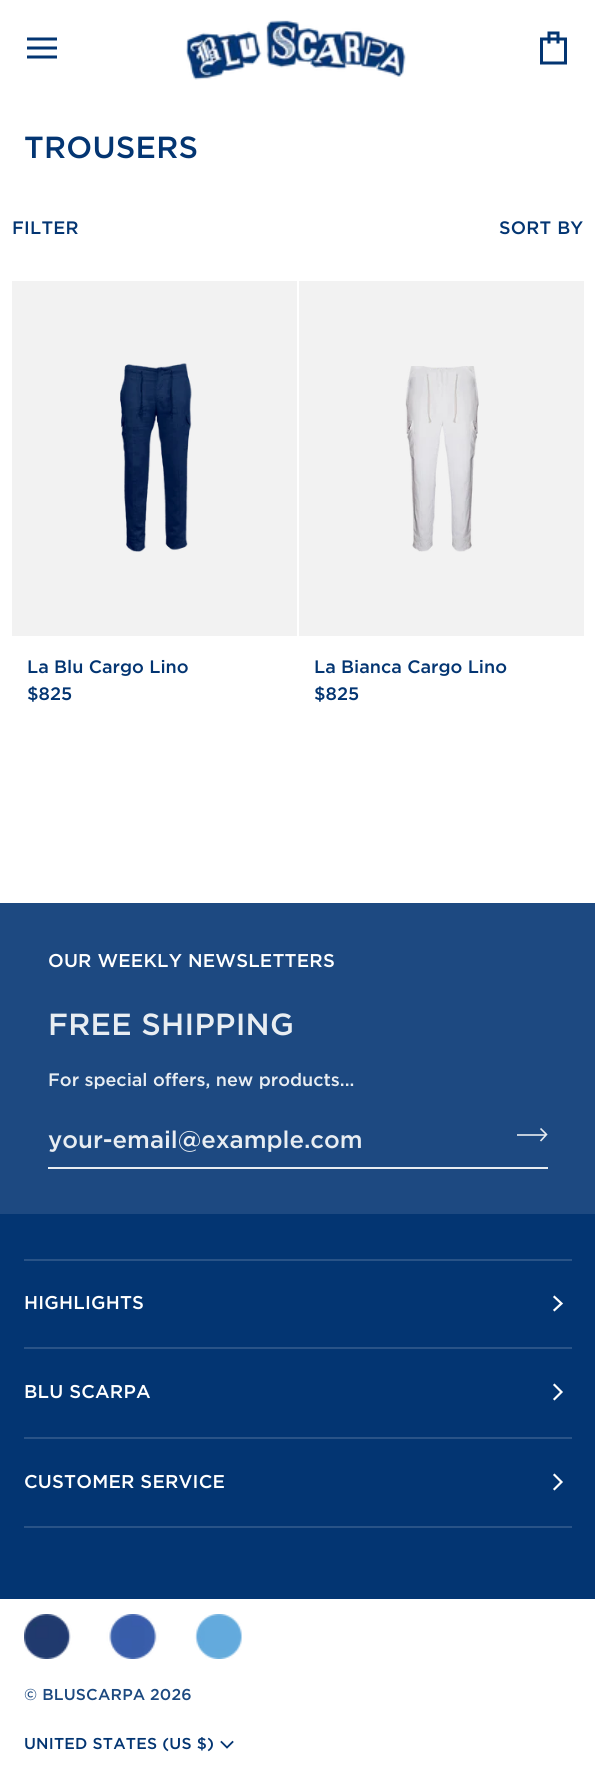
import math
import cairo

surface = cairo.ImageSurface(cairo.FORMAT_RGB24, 595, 1782)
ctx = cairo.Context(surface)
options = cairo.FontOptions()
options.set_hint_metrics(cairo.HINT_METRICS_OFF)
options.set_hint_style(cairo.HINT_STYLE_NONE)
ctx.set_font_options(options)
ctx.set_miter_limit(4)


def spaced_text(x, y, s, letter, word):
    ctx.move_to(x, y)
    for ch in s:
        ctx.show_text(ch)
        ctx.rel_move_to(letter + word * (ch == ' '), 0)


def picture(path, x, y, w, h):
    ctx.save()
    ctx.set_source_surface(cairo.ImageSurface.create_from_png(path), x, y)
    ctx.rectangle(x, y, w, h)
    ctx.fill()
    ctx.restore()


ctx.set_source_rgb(1, 1, 1)
ctx.paint()
ctx.new_path()
ctx.move_to(55.5, 39)
ctx.line_to(28.5, 39)
ctx.move_to(55.5, 48)
ctx.line_to(28.5, 48)
ctx.move_to(55.5, 57)
ctx.line_to(28.5, 57)
ctx.set_source_rgb(0.012, 0.208, 0.447)
ctx.set_line_width(3)
ctx.set_line_cap(cairo.LINE_CAP_SQUARE)
ctx.stroke()
picture("img1.png", 186, 20, 220, 60)
ctx.new_path()
ctx.move_to(541.5, 39)
ctx.line_to(565.5, 39)
ctx.line_to(565.5, 63)
ctx.line_to(541.5, 63)
ctx.close_path()
ctx.move_to(549, 43.5)
ctx.line_to(549, 33)
ctx.line_to(558, 33)
ctx.line_to(558, 43.5)
ctx.set_line_cap(cairo.LINE_CAP_BUTT)
ctx.stroke()
ctx.select_font_face("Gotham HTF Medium")
ctx.set_font_size(30.5)
spaced_text(24, 158, "TROUSERS", 0.25, 0)
ctx.set_font_size(18)
spaced_text(12, 234, "FILTER", 0.25, 0)
spaced_text(499, 234, "SORT BY", 0.25, 0)
ctx.set_source_rgb(0.949, 0.949, 0.949)
ctx.rectangle(12, 281, 285, 355)
ctx.fill()
picture("img2.png", 120, 363, 72, 189)
ctx.set_source_rgb(0.012, 0.208, 0.447)
ctx.move_to(27, 673)
ctx.show_text("La Blu Cargo Lino")
ctx.move_to(27, 700)
ctx.show_text("$825")
ctx.set_source_rgb(0.949, 0.949, 0.949)
ctx.rectangle(299, 281, 285, 355)
ctx.fill()
picture("img3.png", 405, 366, 74, 186)
ctx.set_source_rgb(0.012, 0.208, 0.447)
ctx.move_to(314, 673)
ctx.show_text("La Bianca Cargo Lino")
ctx.move_to(314, 700)
ctx.show_text("$825")
ctx.rectangle(0, 1214, 595, 385)
ctx.fill()
ctx.set_source_rgb(0.114, 0.286, 0.506)
ctx.rectangle(0, 903, 595, 311)
ctx.fill()
ctx.set_font_size(18.5)
ctx.set_source_rgb(1, 1, 1)
spaced_text(48, 967, "OUR WEEKLY NEWSLETTERS", 0.2, 0)
ctx.set_font_size(30.5)
ctx.set_source_rgb(0.91, 0.929, 0.949)
spaced_text(48, 1035, "FREE SHIPPING", 0.25, 0)
ctx.set_font_size(18)
ctx.move_to(48, 1086)
ctx.show_text("For special offers, new products...")
ctx.rectangle(48, 1167, 500, 2)
ctx.fill()
ctx.set_font_size(24)
ctx.move_to(48, 1148)
ctx.show_text("your-email@example.com")
ctx.new_path()
ctx.move_to(540.5, 1128.5)
ctx.line_to(546.5, 1134.5)
ctx.line_to(540.5, 1141)
ctx.move_to(517, 1135)
ctx.line_to(546.5, 1135)
ctx.set_line_width(1.6)
ctx.stroke()
ctx.set_source_rgb(0.161, 0.325, 0.529)
ctx.rectangle(24, 1259, 548, 2)
ctx.fill()
ctx.rectangle(24, 1347, 548, 2)
ctx.fill()
ctx.set_font_size(18.5)
ctx.set_source_rgb(1, 1, 1)
spaced_text(24, 1309, "HIGHLIGHTS", 0.2, 0)
ctx.new_path()
ctx.move_to(554.5, 1310)
ctx.line_to(561.5, 1303.5)
ctx.line_to(554.5, 1297)
ctx.set_line_width(2.2)
ctx.set_line_cap(cairo.LINE_CAP_SQUARE)
ctx.stroke()
ctx.set_source_rgb(0.161, 0.325, 0.529)
ctx.rectangle(24, 1437, 548, 2)
ctx.fill()
ctx.set_source_rgb(1, 1, 1)
spaced_text(24, 1398, "BLU SCARPA", 0.2, 0)
ctx.new_path()
ctx.move_to(554.5, 1399)
ctx.line_to(561.5, 1392)
ctx.line_to(554.5, 1385)
ctx.stroke()
ctx.set_source_rgb(0.161, 0.325, 0.529)
ctx.rectangle(24, 1526, 548, 2)
ctx.fill()
ctx.set_source_rgb(1, 1, 1)
spaced_text(24, 1488, "CUSTOMER SERVICE", 0.2, 0)
ctx.new_path()
ctx.move_to(554.5, 1489)
ctx.line_to(561.5, 1482)
ctx.line_to(554.5, 1475)
ctx.stroke()
picture("img4.png", 24, 1614, 218, 45)
ctx.set_font_size(15.75)
ctx.set_source_rgb(0.11, 0.286, 0.502)
spaced_text(24, 1700, "© BLUSCARPA", 0.2, 0)
spaced_text(150, 1700, "2026", 0.2, 0)
ctx.set_source_rgb(0.012, 0.208, 0.447)
spaced_text(24, 1749, "UNITED STATES (US $)", 0.2, 0)
ctx.new_path()
ctx.move_to(221.5, 1742)
ctx.line_to(227, 1747.5)
ctx.line_to(232.5, 1742)
ctx.set_line_width(1.8)
ctx.stroke()
surface.write_to_png("page.png")
